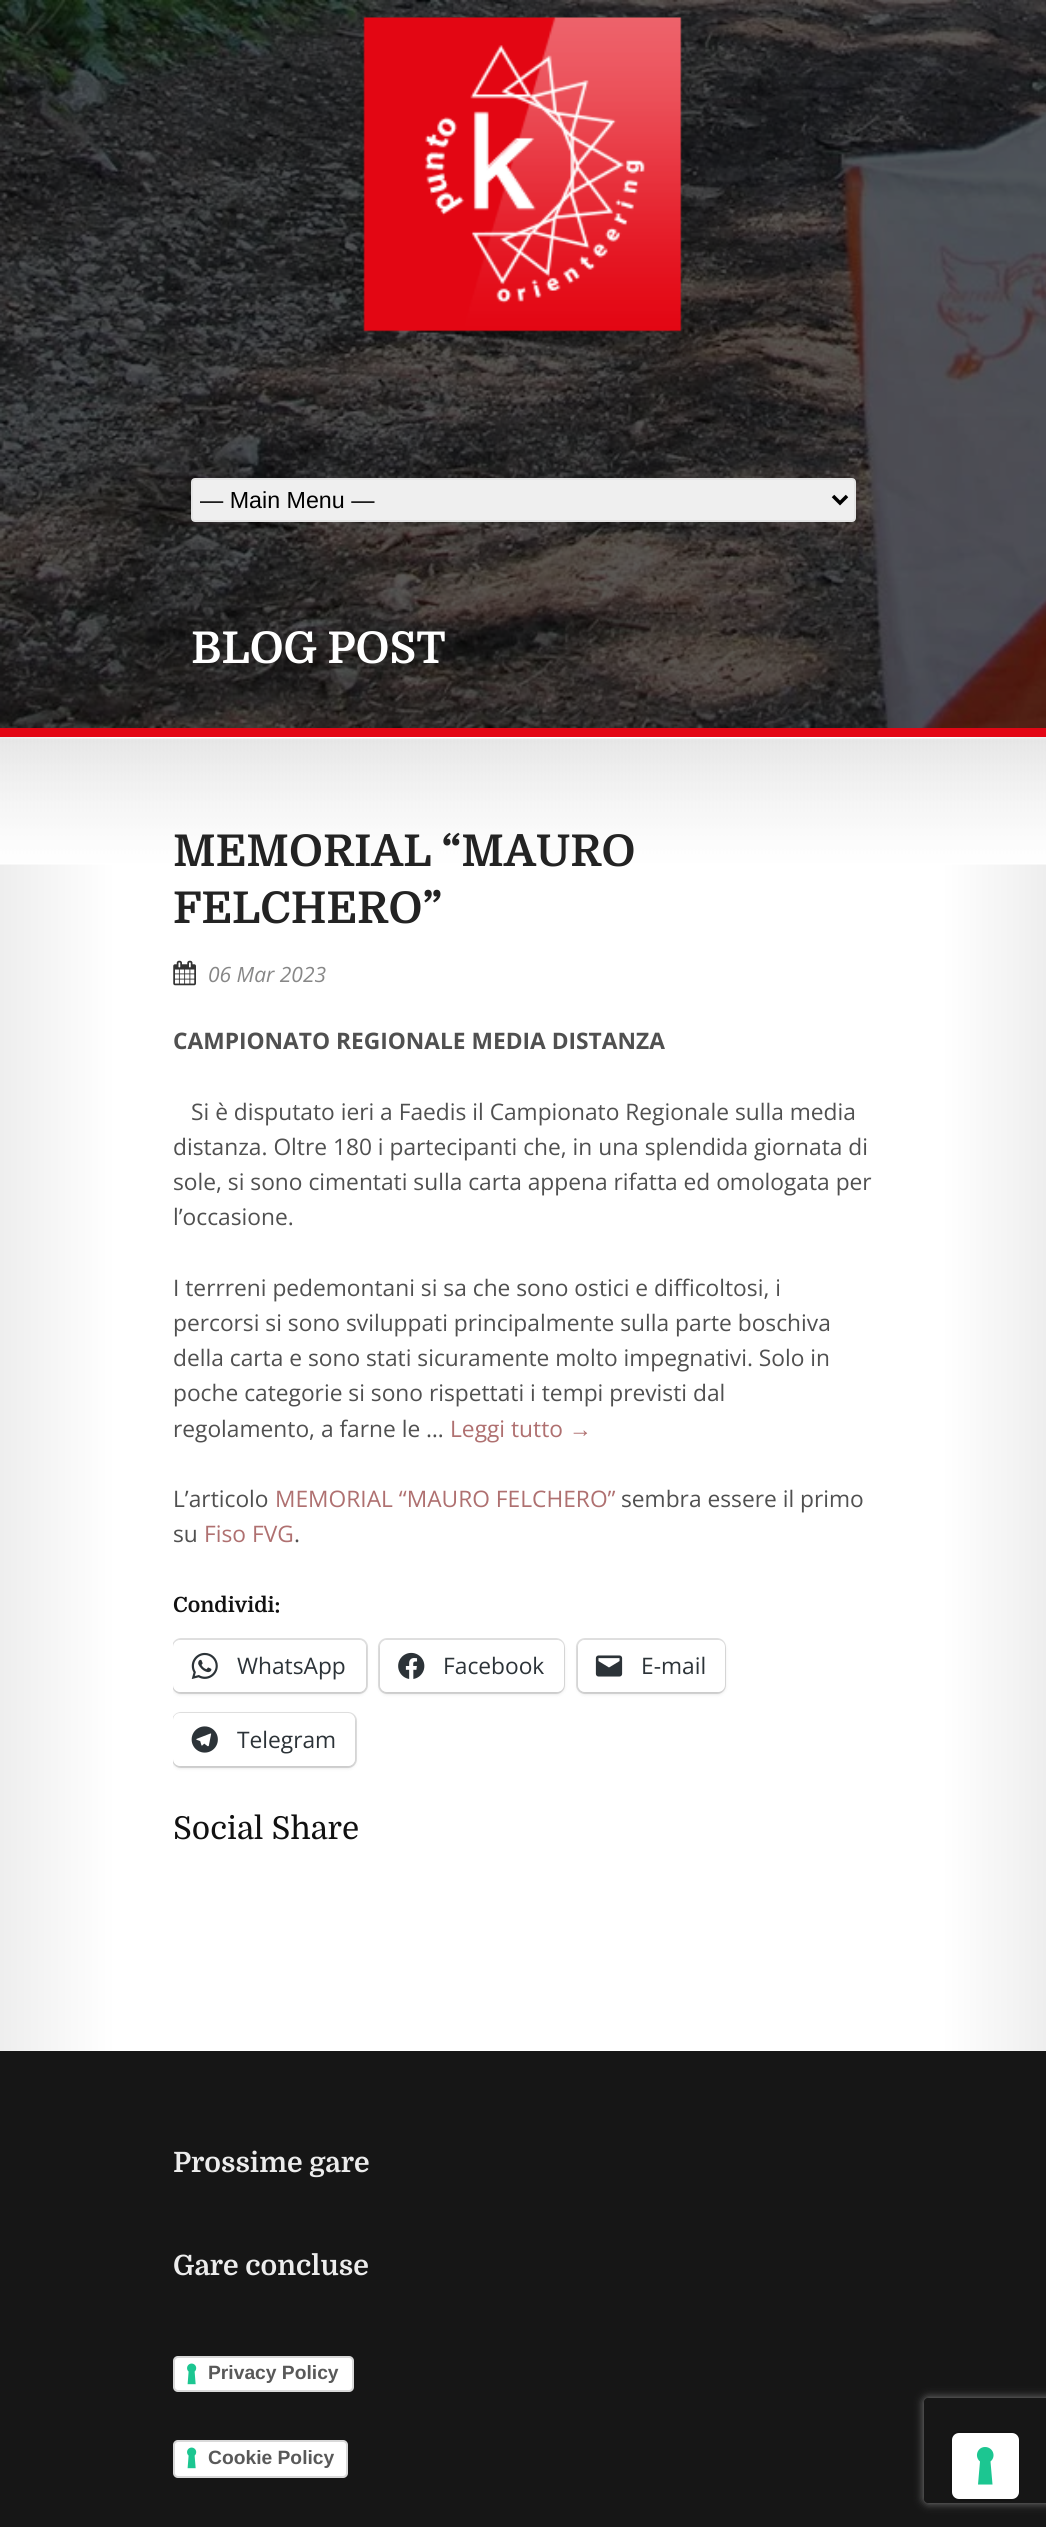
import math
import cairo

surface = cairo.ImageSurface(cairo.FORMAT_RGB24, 1046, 2527)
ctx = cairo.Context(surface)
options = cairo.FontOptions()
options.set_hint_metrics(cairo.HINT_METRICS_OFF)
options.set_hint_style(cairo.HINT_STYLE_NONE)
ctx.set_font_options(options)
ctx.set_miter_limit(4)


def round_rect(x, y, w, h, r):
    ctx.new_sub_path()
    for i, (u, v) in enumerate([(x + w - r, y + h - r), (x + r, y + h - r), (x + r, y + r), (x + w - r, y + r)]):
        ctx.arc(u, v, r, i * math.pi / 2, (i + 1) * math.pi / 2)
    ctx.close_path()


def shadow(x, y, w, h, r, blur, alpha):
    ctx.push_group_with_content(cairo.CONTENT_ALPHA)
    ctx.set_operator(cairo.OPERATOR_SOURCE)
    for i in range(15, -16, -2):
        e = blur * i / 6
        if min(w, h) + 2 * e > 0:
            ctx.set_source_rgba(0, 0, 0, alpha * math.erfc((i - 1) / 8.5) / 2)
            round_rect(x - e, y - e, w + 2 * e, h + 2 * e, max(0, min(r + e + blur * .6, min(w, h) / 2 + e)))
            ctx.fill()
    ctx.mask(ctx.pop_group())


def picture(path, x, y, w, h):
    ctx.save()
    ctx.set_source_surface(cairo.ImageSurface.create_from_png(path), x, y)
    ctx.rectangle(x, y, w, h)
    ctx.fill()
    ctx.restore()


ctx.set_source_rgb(1, 1, 1)
ctx.paint()
gradient = cairo.LinearGradient(0, 1367, 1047, 1367)
gradient.add_color_stop_rgba(0, 0.933, 0.933, 0.933, 1)
gradient.add_color_stop_rgba(0.11, 1, 1, 1, 1)
gradient.add_color_stop_rgba(0.9, 1, 1, 1, 1)
gradient.add_color_stop_rgba(1, 0.933, 0.933, 0.933, 1)
ctx.set_source(gradient)
ctx.rectangle(0, 737, 1046, 1314)
ctx.fill()
picture("img1.png", 0, 0, 1046, 728)
picture("img2.png", 361, 17, 337, 350)
ctx.set_source_rgb(0.937, 0.937, 0.937)
round_rect(192, 479, 663, 42, 3)
ctx.fill_preserve()
ctx.set_source_rgb(0.898, 0.898, 0.898)
ctx.stroke()
ctx.new_path()
ctx.move_to(833, 496)
ctx.line_to(840, 503)
ctx.line_to(847, 496)
ctx.set_source_rgb(0, 0, 0)
ctx.set_line_width(3.5)
ctx.stroke()
ctx.select_font_face("Liberation Sans")
ctx.set_font_size(23.25)
ctx.move_to(200, 508)
ctx.show_text("— Main Menu —")
ctx.select_font_face("Domine", cairo.FONT_SLANT_NORMAL, cairo.FONT_WEIGHT_BOLD)
ctx.set_font_size(43.75)
ctx.set_source_rgb(1, 1, 1)
ctx.move_to(191, 663)
ctx.show_text("BLOG POST")
ctx.set_source_rgb(0.89, 0.024, 0.082)
ctx.rectangle(0, 728, 1046, 9)
ctx.fill()
picture("img3.png", 0, 738, 1046, 127)
ctx.set_source_rgb(0.137, 0.137, 0.137)
ctx.move_to(173, 866)
ctx.show_text("MEMORIAL “MAURO")
ctx.move_to(173, 923)
ctx.show_text("FELCHERO”")
picture("img4.png", 173, 960, 23, 26)
ctx.select_font_face("Open Sans", cairo.FONT_SLANT_ITALIC)
ctx.set_font_size(21)
ctx.set_source_rgb(0.529, 0.529, 0.529)
ctx.move_to(208, 982)
ctx.show_text("06 Mar 2023")
ctx.select_font_face("Open Sans", cairo.FONT_SLANT_NORMAL, cairo.FONT_WEIGHT_BOLD)
ctx.set_font_size(22.75)
ctx.set_source_rgb(0.314, 0.314, 0.314)
ctx.move_to(173, 1049)
ctx.show_text("CAMPIONATO REGIONALE MEDIA DISTANZA")
ctx.select_font_face("Open Sans")
ctx.move_to(191, 1120)
ctx.show_text("Si è disputato ieri a Faedis il Campionato Regionale sulla media")
ctx.move_to(173, 1155)
ctx.show_text("distanza. Oltre 180 i partecipanti che, in una splendida giornata di")
ctx.move_to(173, 1190)
ctx.show_text("sole, si sono cimentati sulla carta appena rifatta ed omologata per")
ctx.move_to(173, 1225)
ctx.show_text("l’occasione.")
ctx.move_to(173, 1296)
ctx.show_text("I terrreni pedemontani si sa che sono ostici e difficoltosi, i")
ctx.move_to(173, 1331)
ctx.show_text("percorsi si sono sviluppati principalmente sulla parte boschiva")
ctx.move_to(173, 1366)
ctx.show_text("della carta e sono stati sicuramente molto impegnativi. Solo in")
ctx.move_to(173, 1401)
ctx.show_text("poche categorie si sono rispettati i tempi previsti dal")
ctx.move_to(173, 1437)
ctx.show_text("regolamento, a farne le …")
ctx.set_source_rgb(0.686, 0.439, 0.439)
ctx.move_to(450, 1437)
ctx.show_text("Leggi tutto")
ctx.select_font_face("Liberation Serif")
ctx.move_to(569, 1437)
ctx.show_text("→")
ctx.select_font_face("Open Sans")
ctx.set_source_rgb(0.314, 0.314, 0.314)
ctx.move_to(173, 1507)
ctx.show_text("L’articolo")
ctx.set_source_rgb(0.686, 0.439, 0.439)
ctx.move_to(275, 1507)
ctx.show_text("MEMORIAL “MAURO FELCHERO”")
ctx.set_source_rgb(0.314, 0.314, 0.314)
ctx.move_to(621, 1507)
ctx.show_text("sembra essere il primo")
ctx.move_to(173, 1542)
ctx.show_text("su")
ctx.set_source_rgb(0.686, 0.439, 0.439)
ctx.move_to(204, 1542)
ctx.show_text("Fiso FVG")
ctx.set_source_rgb(0.314, 0.314, 0.314)
ctx.move_to(294, 1542)
ctx.show_text(".")
ctx.select_font_face("Domine", cairo.FONT_SLANT_NORMAL, cairo.FONT_WEIGHT_BOLD)
ctx.set_font_size(21)
ctx.set_source_rgb(0.067, 0.067, 0.067)
ctx.move_to(173, 1612)
ctx.show_text("Condividi:")
ctx.save()
ctx.rectangle(173, 824, 700, 1192)
ctx.clip()
round_rect(173, 1639, 194, 54, 8)
ctx.set_source_rgb(0.878, 0.878, 0.878)
ctx.set_line_width(2)
ctx.stroke()
ctx.restore()
ctx.save()
ctx.rectangle(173, 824, 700, 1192)
ctx.clip()
ctx.set_source_rgb(0, 0, 0)
shadow(173, 1642, 193, 52, 7, 2, 0.12)
ctx.restore()
ctx.set_source_rgb(1, 1, 1)
round_rect(173, 1640, 193, 52, 7)
ctx.fill()
picture("img5.png", 191, 1652, 27, 27)
ctx.select_font_face("Open Sans")
ctx.set_font_size(22.75)
ctx.set_source_rgb(0.173, 0.2, 0.22)
ctx.move_to(237, 1674)
ctx.show_text("WhatsApp")
round_rect(379, 1639, 185, 54, 8)
ctx.set_source_rgb(0.878, 0.878, 0.878)
ctx.set_line_width(2)
ctx.stroke()
ctx.set_source_rgb(0, 0, 0)
shadow(380, 1642, 184, 52, 7, 2, 0.12)
ctx.set_source_rgb(1, 1, 1)
round_rect(380, 1640, 184, 52, 7)
ctx.fill()
picture("img6.png", 398, 1652, 27, 27)
ctx.set_source_rgb(0.173, 0.2, 0.22)
ctx.move_to(443, 1674)
ctx.show_text("Facebook")
round_rect(577, 1639, 148, 54, 8)
ctx.set_source_rgb(0.878, 0.878, 0.878)
ctx.stroke()
ctx.set_source_rgb(0, 0, 0)
shadow(578, 1642, 147, 52, 7, 2, 0.12)
ctx.set_source_rgb(1, 1, 1)
round_rect(578, 1640, 147, 52, 7)
ctx.fill()
picture("img7.png", 595, 1655, 28, 22)
ctx.set_source_rgb(0.173, 0.2, 0.22)
ctx.move_to(641, 1674)
ctx.show_text("E-mail")
ctx.save()
ctx.rectangle(173, 824, 700, 1192)
ctx.clip()
round_rect(173, 1713, 183, 54, 8)
ctx.set_source_rgb(0.878, 0.878, 0.878)
ctx.stroke()
ctx.restore()
ctx.save()
ctx.rectangle(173, 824, 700, 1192)
ctx.clip()
ctx.set_source_rgb(0, 0, 0)
shadow(173, 1715, 182, 53, 7, 2, 0.12)
ctx.restore()
ctx.set_source_rgb(1, 1, 1)
round_rect(173, 1713, 182, 53, 7)
ctx.fill()
picture("img8.png", 191, 1726, 27, 27)
ctx.set_source_rgb(0.173, 0.2, 0.22)
ctx.move_to(237, 1748)
ctx.show_text("Telegram")
ctx.select_font_face("Domine")
ctx.set_font_size(31.5)
ctx.set_source_rgb(0.067, 0.067, 0.067)
ctx.move_to(173, 1839)
ctx.show_text("Social Share")
ctx.set_source_rgb(0.086, 0.086, 0.086)
ctx.rectangle(0, 2051, 1046, 476)
ctx.fill()
ctx.select_font_face("Domine", cairo.FONT_SLANT_NORMAL, cairo.FONT_WEIGHT_BOLD)
ctx.set_font_size(28)
ctx.set_source_rgb(0.925, 0.925, 0.925)
ctx.move_to(173, 2172)
ctx.show_text("Prossime gare")
ctx.move_to(173, 2275)
ctx.show_text("Gare concluse")
ctx.set_source_rgb(1, 1, 1)
round_rect(173, 2356, 181, 36, 5)
ctx.fill()
picture("img9.png", 187, 2363, 10, 22)
round_rect(174, 2357, 179, 34, 4)
ctx.set_source_rgba(0, 0, 0, 0.15)
ctx.stroke()
ctx.select_font_face("Liberation Sans", cairo.FONT_SLANT_NORMAL, cairo.FONT_WEIGHT_BOLD)
ctx.set_font_size(19.25)
ctx.set_source_rgb(0.349, 0.349, 0.349)
ctx.move_to(208, 2379)
ctx.show_text("Privacy Policy")
ctx.set_source_rgb(1, 1, 1)
round_rect(173, 2440, 175, 38, 5)
ctx.fill()
picture("img9.png", 187, 2447, 10, 22)
round_rect(174, 2441, 173, 36, 4)
ctx.set_source_rgba(0, 0, 0, 0.15)
ctx.stroke()
ctx.set_source_rgb(0.349, 0.349, 0.349)
ctx.move_to(208, 2464)
ctx.show_text("Cookie Policy")
ctx.save()
ctx.set_fill_rule(cairo.FILL_RULE_EVEN_ODD)
ctx.new_path()
ctx.move_to(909, 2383)
ctx.line_to(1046, 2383)
ctx.line_to(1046, 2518)
ctx.line_to(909, 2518)
ctx.close_path()
ctx.move_to(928, 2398)
ctx.line_to(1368, 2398)
ctx.curve_to(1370, 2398, 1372, 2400, 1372, 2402)
ctx.line_to(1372, 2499)
ctx.curve_to(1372, 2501, 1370, 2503, 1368, 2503)
ctx.line_to(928, 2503)
ctx.curve_to(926, 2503, 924, 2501, 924, 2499)
ctx.line_to(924, 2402)
ctx.curve_to(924, 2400, 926, 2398, 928, 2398)
ctx.close_path()
ctx.clip()
ctx.set_source_rgb(0.502, 0.502, 0.502)
shadow(924, 2398, 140, 105, 4, 4.5, 1)
ctx.restore()
round_rect(951, 2432, 68, 68, 8)
ctx.set_source_rgb(0.075, 0.075, 0.075)
ctx.stroke()
ctx.set_source_rgb(1, 1, 1)
round_rect(952, 2433, 67, 66, 7)
ctx.fill()
ctx.set_source_rgb(0.11, 0.776, 0.569)
ctx.set_fill_rule(cairo.FILL_RULE_EVEN_ODD)
ctx.new_path()
ctx.move_to(985, 2447)
ctx.curve_to(993, 2447, 996.5, 2456.5, 990.5, 2461.5)
ctx.line_to(992.5, 2484.5)
ctx.line_to(978, 2484.5)
ctx.line_to(980, 2461.5)
ctx.curve_to(974, 2456.5, 977.5, 2447, 985, 2447)
ctx.close_path()
ctx.fill()
surface.write_to_png("page.png")
